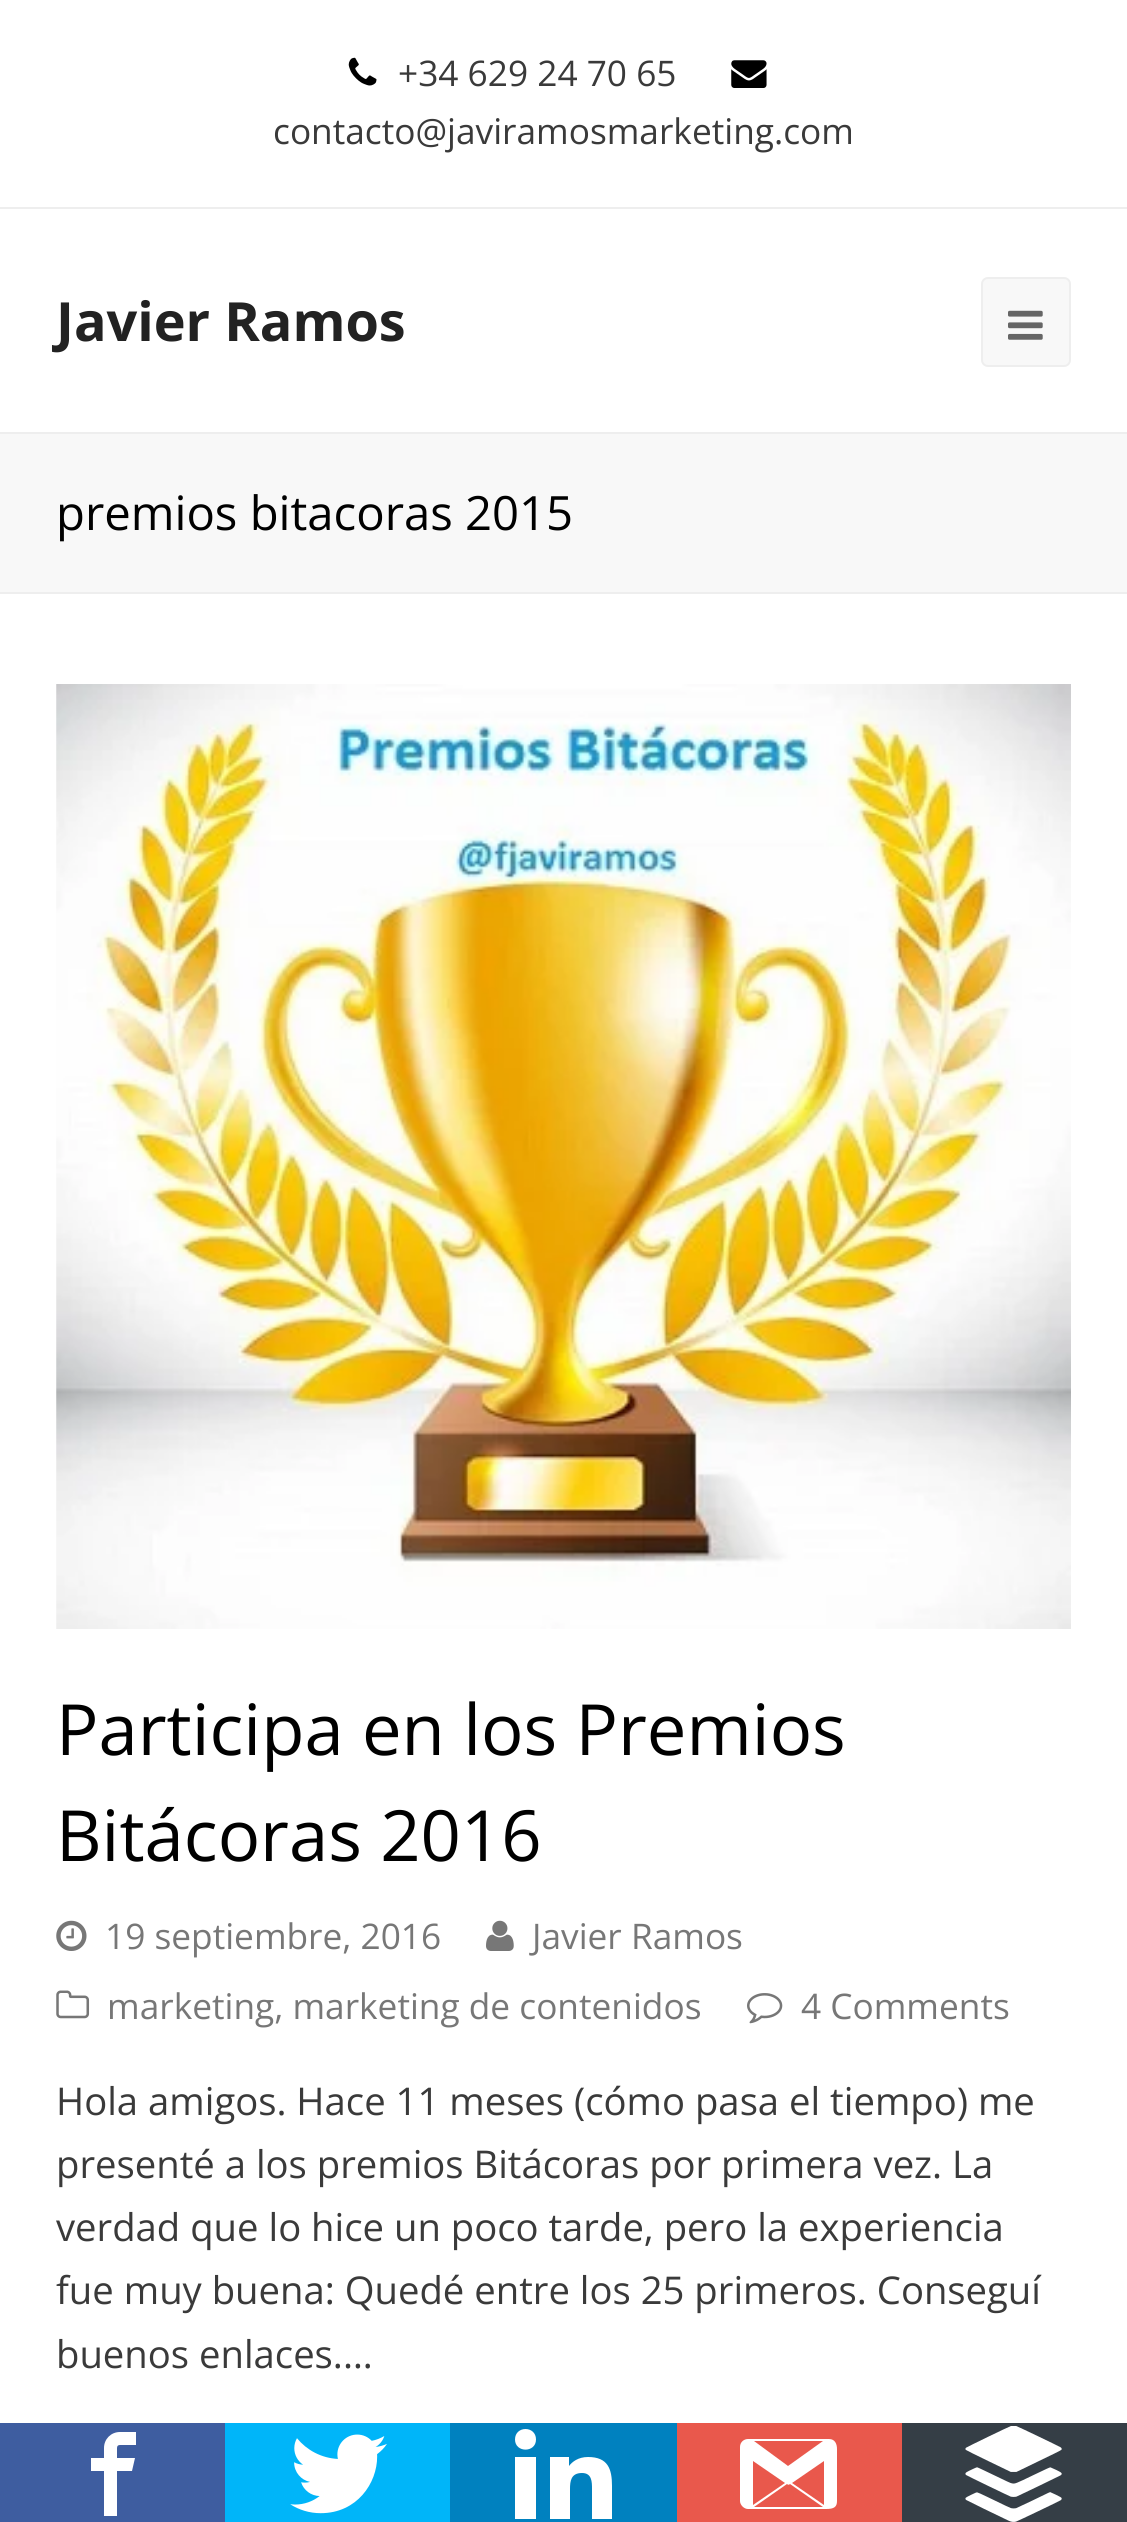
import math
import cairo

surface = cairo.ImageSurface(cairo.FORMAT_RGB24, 1127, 2522)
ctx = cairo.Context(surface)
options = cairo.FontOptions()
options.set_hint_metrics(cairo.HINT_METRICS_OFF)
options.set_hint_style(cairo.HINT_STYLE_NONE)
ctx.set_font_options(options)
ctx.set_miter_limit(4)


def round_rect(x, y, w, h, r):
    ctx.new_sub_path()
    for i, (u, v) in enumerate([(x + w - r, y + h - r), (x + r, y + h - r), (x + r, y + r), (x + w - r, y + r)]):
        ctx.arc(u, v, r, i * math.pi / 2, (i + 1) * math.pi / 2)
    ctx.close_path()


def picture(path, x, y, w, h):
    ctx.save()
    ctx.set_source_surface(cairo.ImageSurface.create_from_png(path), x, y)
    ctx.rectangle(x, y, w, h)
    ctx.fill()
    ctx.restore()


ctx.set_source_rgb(1, 1, 1)
ctx.paint()
ctx.set_source_rgb(0.933, 0.933, 0.933)
ctx.rectangle(0, 207, 1127, 2)
ctx.fill()
picture("img1.png", 348, 57, 29, 29)
ctx.select_font_face("Open Sans")
ctx.set_font_size(35.25)
ctx.set_source_rgb(0.227, 0.227, 0.227)
ctx.move_to(398, 86)
ctx.show_text("+34 629 24 70 65")
picture("img2.png", 731, 60, 36, 28)
ctx.move_to(273, 144)
ctx.show_text("contacto@javiramosmarketing.com")
ctx.select_font_face("Open Sans", cairo.FONT_SLANT_NORMAL, cairo.FONT_WEIGHT_BOLD)
ctx.set_font_size(54)
ctx.set_source_rgb(0.133, 0.133, 0.133)
ctx.move_to(56, 341)
ctx.show_text("Javier Ramos")
ctx.set_source_rgb(0.969, 0.969, 0.969)
round_rect(982, 278, 88, 88, 6)
ctx.fill_preserve()
ctx.set_source_rgb(0.933, 0.933, 0.933)
ctx.stroke()
picture("img3.png", 1008, 310, 35, 30)
ctx.set_source_rgb(0.969, 0.969, 0.969)
ctx.rectangle(0, 434, 1127, 158)
ctx.fill()
ctx.set_source_rgb(0.933, 0.933, 0.933)
ctx.rectangle(0, 432, 1127, 2)
ctx.fill()
ctx.rectangle(0, 592, 1127, 2)
ctx.fill()
ctx.select_font_face("Open Sans")
ctx.set_font_size(47.25)
ctx.set_source_rgb(0, 0, 0)
ctx.move_to(56, 530)
ctx.show_text("premios bitacoras 2015")
picture("img4.png", 56, 684, 1015, 945)
ctx.set_font_size(70.6)
ctx.move_to(56, 1755)
ctx.show_text("Participa en los Premios")
ctx.move_to(56, 1861)
ctx.show_text("Bitácoras 2016")
picture("img5.png", 56, 1920, 31, 31)
ctx.set_font_size(35.25)
ctx.set_source_rgb(0.467, 0.467, 0.467)
ctx.move_to(105, 1949)
ctx.show_text("19 septiembre, 2016")
picture("img6.png", 486, 1920, 28, 31)
ctx.move_to(532, 1949)
ctx.show_text("Javier Ramos")
picture("img7.png", 56, 1990, 34, 29)
ctx.move_to(107, 2019)
ctx.show_text("marketing, marketing de contenidos")
picture("img8.png", 747, 1993, 36, 31)
ctx.move_to(801, 2019)
ctx.show_text("4 Comments")
ctx.set_font_size(38.25)
ctx.set_source_rgb(0.227, 0.227, 0.227)
ctx.move_to(56, 2115)
ctx.show_text("Hola amigos. Hace 11 meses (cómo pasa el tiempo) me")
ctx.move_to(56, 2178)
ctx.show_text("presenté a los premios Bitácoras por primera vez. La")
ctx.move_to(56, 2241)
ctx.show_text("verdad que lo hice un poco tarde, pero la experiencia")
ctx.move_to(56, 2304)
ctx.show_text("fue muy buena: Quedé entre los 25 primeros. Conseguí")
ctx.move_to(56, 2368)
ctx.show_text("buenos enlaces.…")
ctx.set_source_rgb(0.243, 0.365, 0.627)
ctx.rectangle(0, 2423, 225, 99)
ctx.fill()
ctx.set_source_rgb(1, 1, 1)
ctx.new_path()
ctx.move_to(120, 2432)
ctx.curve_to(111, 2432, 104, 2439, 104, 2448)
ctx.line_to(104, 2458)
ctx.line_to(91, 2458)
ctx.line_to(91, 2471)
ctx.line_to(104, 2471)
ctx.line_to(104, 2516)
ctx.line_to(117, 2516)
ctx.line_to(117, 2471)
ctx.line_to(132, 2471)
ctx.line_to(135, 2458)
ctx.line_to(117, 2458)
ctx.line_to(117, 2448)
ctx.curve_to(117, 2446, 118, 2445, 120, 2445)
ctx.line_to(136, 2445)
ctx.line_to(136, 2432)
ctx.close_path()
ctx.fill()
ctx.set_source_rgb(0, 0.71, 0.976)
ctx.rectangle(225, 2423, 225, 99)
ctx.fill()
picture("img9.png", 290, 2434, 97, 80)
ctx.set_source_rgb(0, 0.506, 0.749)
ctx.rectangle(450, 2423, 227, 99)
ctx.fill()
ctx.set_source_rgb(1, 1, 1)
ctx.new_path()
ctx.move_to(550, 2457)
ctx.line_to(569, 2457)
ctx.line_to(569, 2466)
ctx.curve_to(572, 2462, 578, 2457, 588, 2457)
ctx.curve_to(608, 2457, 612, 2469, 612, 2486)
ctx.line_to(612, 2519)
ctx.line_to(592, 2519)
ctx.line_to(592, 2489)
ctx.curve_to(592, 2482, 592, 2473, 582, 2473)
ctx.curve_to(571, 2473, 570, 2481, 570, 2489)
ctx.line_to(570, 2519)
ctx.line_to(550, 2519)
ctx.close_path()
ctx.fill()
ctx.rectangle(515, 2457, 21, 62)
ctx.fill()
ctx.new_path()
ctx.move_to(536, 2439.5)
ctx.curve_to(536, 2453, 515, 2453, 515, 2439.5)
ctx.curve_to(515, 2425.5, 536, 2425.5, 536, 2439.5)
ctx.close_path()
ctx.fill()
ctx.set_source_rgb(0.914, 0.345, 0.298)
ctx.rectangle(677, 2423, 225, 99)
ctx.fill()
ctx.set_source_rgb(1, 1, 1)
ctx.new_path()
ctx.move_to(837, 2449)
ctx.curve_to(837, 2444, 835, 2439, 829, 2439)
ctx.line_to(748, 2439)
ctx.curve_to(744, 2439, 740, 2442, 740, 2447)
ctx.line_to(740, 2501)
ctx.curve_to(740, 2505, 744, 2509, 748, 2509)
ctx.line_to(826, 2509)
ctx.curve_to(834, 2509, 837, 2507, 837, 2501)
ctx.close_path()
ctx.move_to(823, 2441)
ctx.line_to(788, 2466)
ctx.line_to(754, 2441)
ctx.close_path()
ctx.move_to(753, 2461)
ctx.line_to(785, 2483)
ctx.line_to(753, 2505)
ctx.close_path()
ctx.move_to(754, 2507)
ctx.line_to(787, 2484)
ctx.curve_to(788, 2485, 789, 2485, 790, 2484)
ctx.line_to(823, 2507)
ctx.close_path()
ctx.move_to(824, 2505)
ctx.line_to(792, 2483)
ctx.line_to(824, 2461)
ctx.close_path()
ctx.fill()
ctx.set_source_rgb(0.208, 0.243, 0.275)
ctx.rectangle(902, 2423, 225, 99)
ctx.fill()
picture("img10.png", 965, 2426, 97, 96)
surface.write_to_png("page.png")
